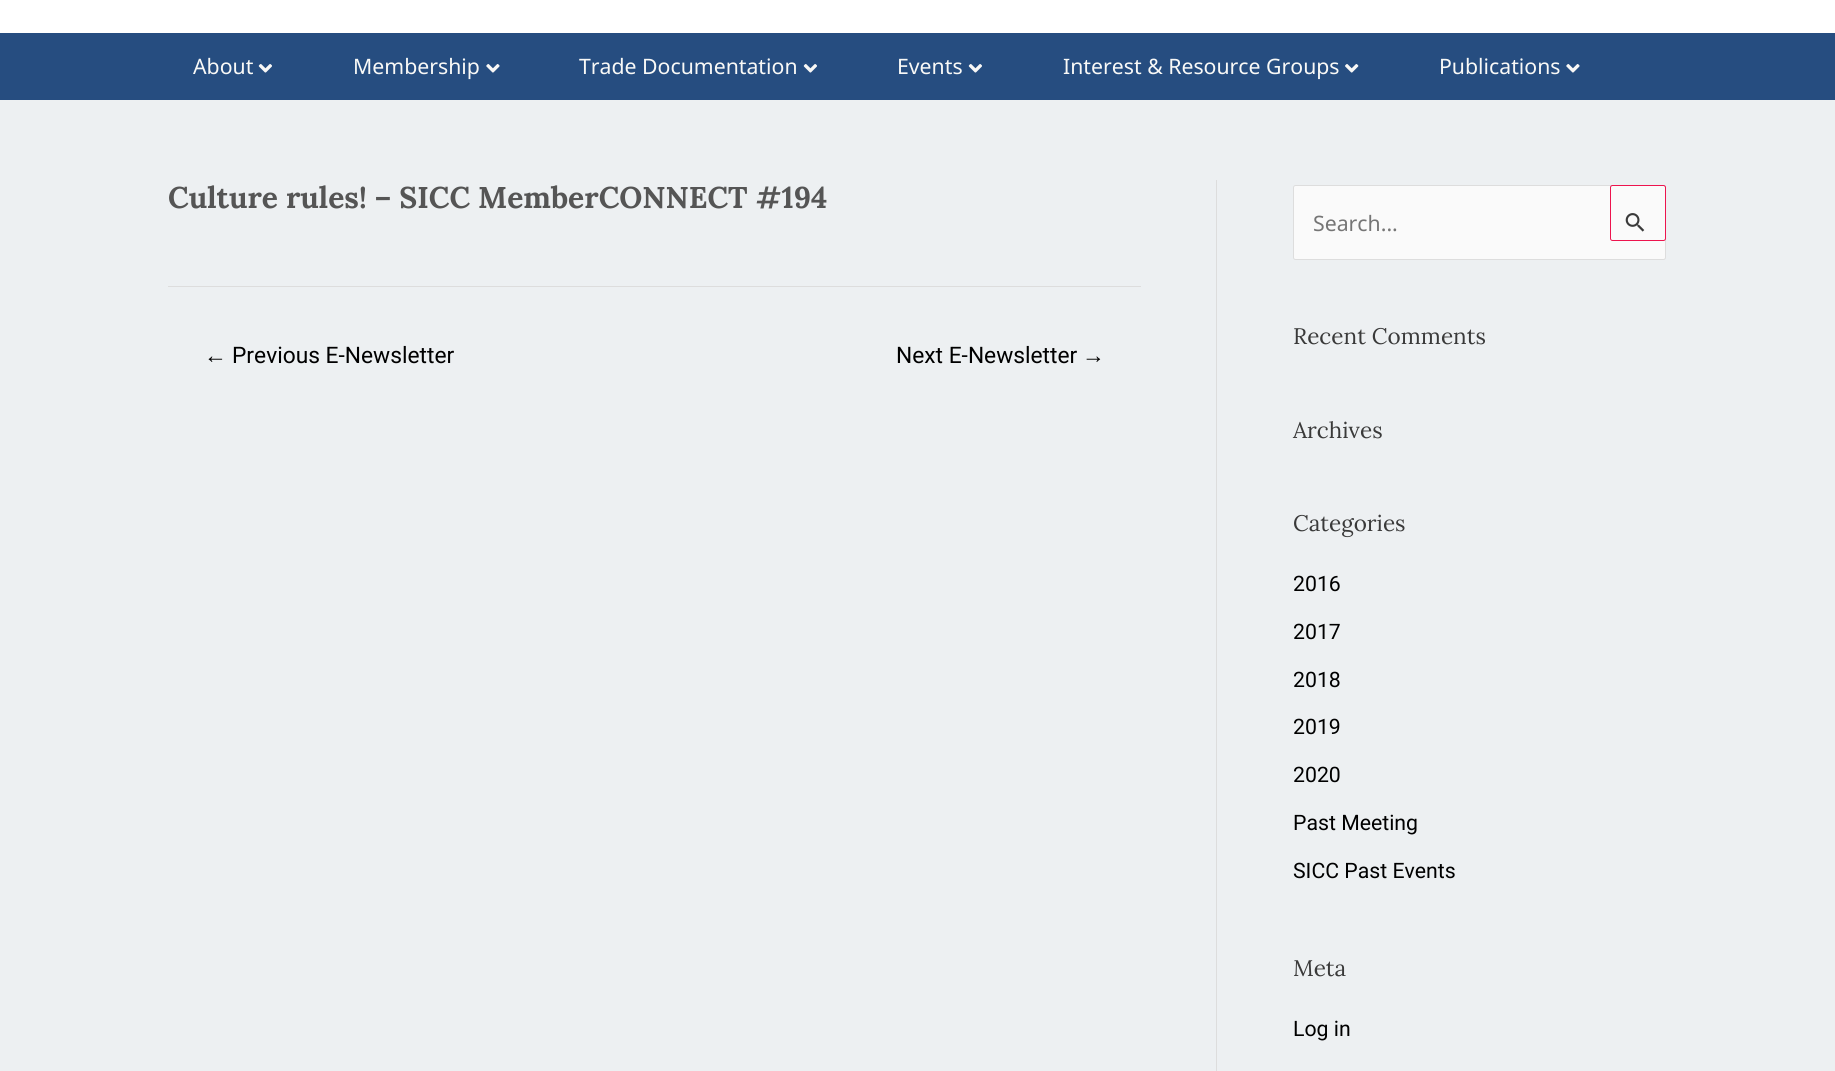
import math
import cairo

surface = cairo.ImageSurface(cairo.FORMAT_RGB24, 1835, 1071)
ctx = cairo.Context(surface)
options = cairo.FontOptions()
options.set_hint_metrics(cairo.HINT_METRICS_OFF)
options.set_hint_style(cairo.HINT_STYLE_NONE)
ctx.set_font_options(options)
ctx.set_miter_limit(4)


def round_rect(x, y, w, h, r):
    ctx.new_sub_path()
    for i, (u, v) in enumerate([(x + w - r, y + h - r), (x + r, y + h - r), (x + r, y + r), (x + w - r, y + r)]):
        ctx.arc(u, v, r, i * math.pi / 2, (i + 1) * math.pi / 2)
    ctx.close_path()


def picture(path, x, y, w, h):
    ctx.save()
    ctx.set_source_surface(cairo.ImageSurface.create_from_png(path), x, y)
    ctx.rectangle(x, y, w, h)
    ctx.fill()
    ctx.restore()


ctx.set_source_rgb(0.929, 0.941, 0.949)
ctx.paint()
ctx.set_source_rgb(1, 1, 1)
ctx.rectangle(0, 0, 1835, 33)
ctx.fill()
ctx.set_source_rgb(0.149, 0.302, 0.502)
ctx.rectangle(0, 33, 1835, 67)
ctx.fill()
ctx.select_font_face("Noto Sans")
ctx.set_font_size(21.25)
ctx.set_source_rgb(0.976, 0.973, 0.965)
ctx.move_to(193, 74)
ctx.show_text("About")
picture("img1.png", 258, 64, 14, 9)
ctx.move_to(353, 74)
ctx.show_text("Membership")
picture("img2.png", 486, 64, 14, 9)
ctx.move_to(579, 74)
ctx.show_text("Trade Documentation")
picture("img1.png", 803, 64, 14, 9)
ctx.move_to(897, 74)
ctx.show_text("Events")
picture("img1.png", 968, 64, 14, 9)
ctx.move_to(1063, 74)
ctx.show_text("Interest & Resource Groups")
picture("img3.png", 1345, 64, 14, 9)
ctx.move_to(1439, 74)
ctx.show_text("Publications")
picture("img2.png", 1566, 64, 14, 9)
ctx.set_source_rgb(0.867, 0.867, 0.867)
ctx.rectangle(1216, 180, 1, 891)
ctx.fill()
ctx.select_font_face("Lora", cairo.FONT_SLANT_NORMAL, cairo.FONT_WEIGHT_BOLD)
ctx.set_font_size(30)
ctx.set_source_rgb(0.333, 0.333, 0.333)
ctx.move_to(168, 208)
ctx.show_text("Culture rules! – SICC MemberCONNECT #194")
ctx.set_source_rgb(0.867, 0.867, 0.867)
ctx.rectangle(168, 286, 973, 1)
ctx.fill()
ctx.select_font_face("Liberation Sans")
ctx.set_font_size(22.75)
ctx.set_source_rgb(0, 0, 0)
ctx.move_to(204, 363)
ctx.show_text("←")
ctx.select_font_face("Roboto")
ctx.move_to(232, 363)
ctx.show_text("Previous E-Newsletter")
ctx.move_to(896, 363)
ctx.show_text("Next E-Newsletter")
ctx.select_font_face("Liberation Sans")
ctx.move_to(1082, 363)
ctx.show_text("→")
ctx.set_source_rgb(0.98, 0.98, 0.98)
round_rect(1293.5, 185.5, 372, 74, 2)
ctx.fill_preserve()
ctx.set_source_rgb(0.867, 0.867, 0.867)
ctx.set_line_width(1)
ctx.stroke()
picture("img4.png", 1625, 213, 20, 19)
round_rect(1610.5, 185.5, 55, 55, 2)
ctx.set_source_rgb(0.929, 0.082, 0.306)
ctx.stroke()
ctx.select_font_face("Noto Sans")
ctx.set_font_size(21.25)
ctx.set_source_rgb(0.459, 0.459, 0.459)
ctx.move_to(1313, 231)
ctx.show_text("Search...")
ctx.select_font_face("Lora")
ctx.set_font_size(22.5)
ctx.set_source_rgb(0.227, 0.227, 0.227)
ctx.move_to(1293, 344)
ctx.show_text("Recent Comments")
ctx.move_to(1293, 438)
ctx.show_text("Archives")
ctx.move_to(1293, 531)
ctx.show_text("Categories")
ctx.select_font_face("Roboto")
ctx.set_font_size(21.25)
ctx.set_source_rgb(0, 0, 0)
ctx.move_to(1293, 591)
ctx.show_text("2016")
ctx.move_to(1293, 639)
ctx.show_text("2017")
ctx.move_to(1293, 687)
ctx.show_text("2018")
ctx.move_to(1293, 734)
ctx.show_text("2019")
ctx.move_to(1293, 782)
ctx.show_text("2020")
ctx.move_to(1293, 830)
ctx.show_text("Past Meeting")
ctx.move_to(1293, 878)
ctx.show_text("SICC Past Events")
ctx.select_font_face("Lora")
ctx.set_font_size(22.5)
ctx.set_source_rgb(0.227, 0.227, 0.227)
ctx.move_to(1293, 976)
ctx.show_text("Meta")
ctx.select_font_face("Roboto")
ctx.set_font_size(21.25)
ctx.set_source_rgb(0, 0, 0)
ctx.move_to(1293, 1036)
ctx.show_text("Log in")
surface.write_to_png("page.png")
